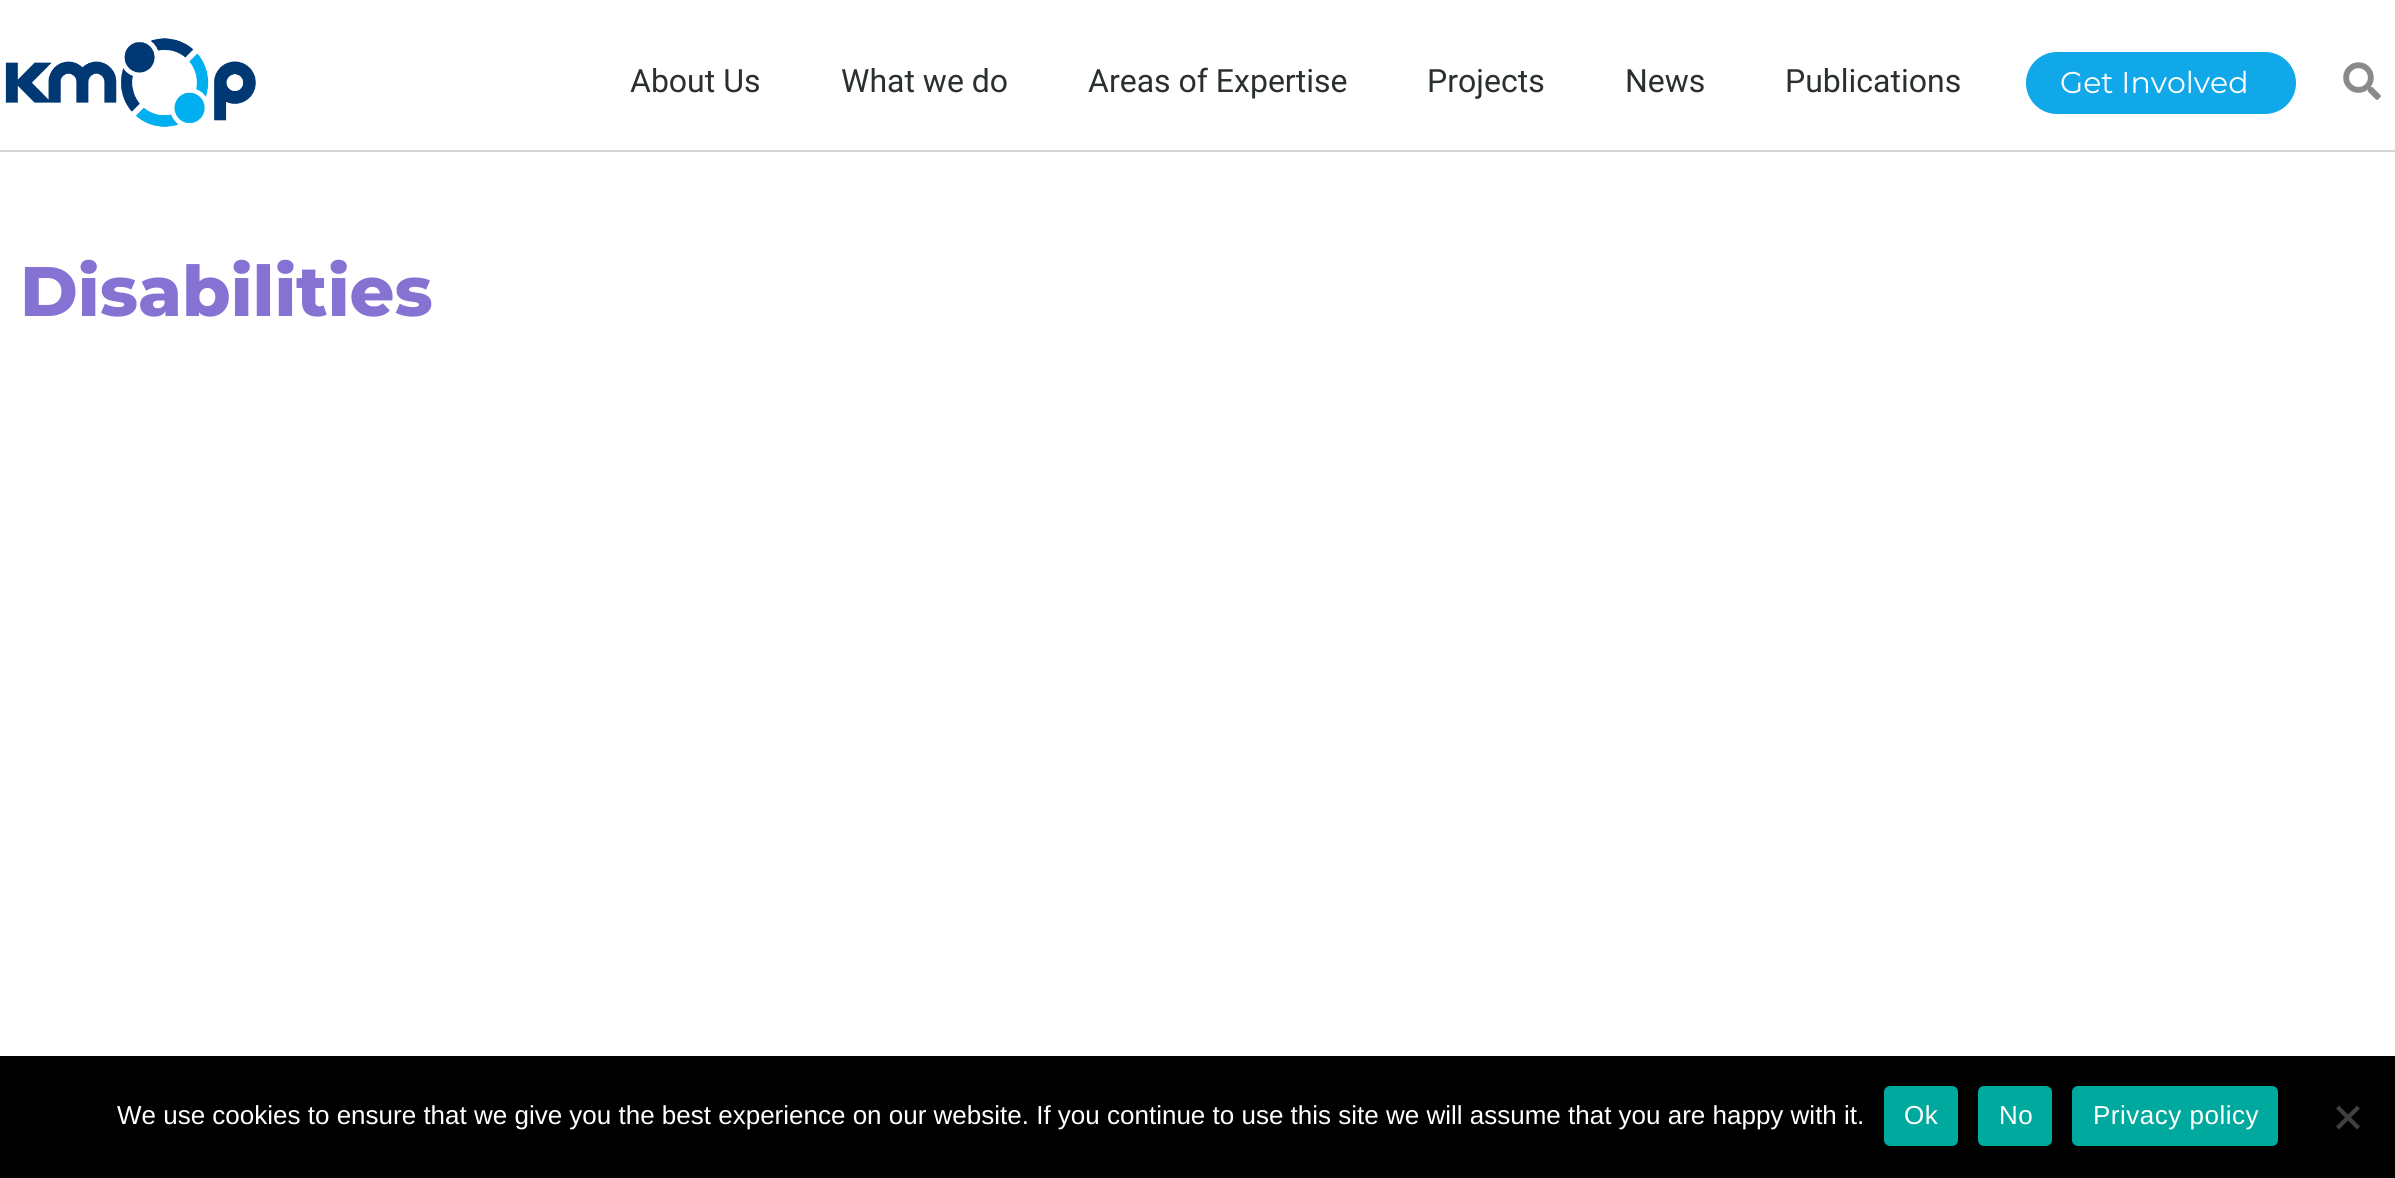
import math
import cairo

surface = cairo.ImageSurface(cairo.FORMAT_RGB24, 2395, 1178)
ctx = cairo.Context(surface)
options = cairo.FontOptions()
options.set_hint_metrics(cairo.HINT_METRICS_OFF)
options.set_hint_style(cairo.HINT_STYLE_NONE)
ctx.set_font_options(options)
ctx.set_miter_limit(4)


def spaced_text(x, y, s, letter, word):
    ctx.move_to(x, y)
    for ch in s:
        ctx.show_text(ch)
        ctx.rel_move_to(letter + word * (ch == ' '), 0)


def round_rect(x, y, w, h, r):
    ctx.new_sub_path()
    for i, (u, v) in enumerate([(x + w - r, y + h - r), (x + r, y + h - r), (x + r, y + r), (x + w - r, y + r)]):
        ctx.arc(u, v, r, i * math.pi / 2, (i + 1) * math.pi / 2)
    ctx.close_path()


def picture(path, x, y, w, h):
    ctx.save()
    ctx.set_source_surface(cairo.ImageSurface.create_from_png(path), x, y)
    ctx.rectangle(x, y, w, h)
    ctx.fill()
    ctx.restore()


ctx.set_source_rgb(1, 1, 1)
ctx.paint()
ctx.set_source_rgb(0.827, 0.827, 0.827)
ctx.rectangle(0, 150, 2395, 2)
ctx.fill()
picture("img1.png", 5, 38, 251, 89)
ctx.select_font_face("Roboto")
ctx.set_font_size(32)
ctx.set_source_rgb(0.165, 0.188, 0.184)
ctx.move_to(630, 92)
ctx.show_text("About Us")
ctx.move_to(841, 92)
ctx.show_text("What we do")
ctx.move_to(1088, 92)
ctx.show_text("Areas of Expertise")
ctx.move_to(1427, 92)
ctx.show_text("Projects")
ctx.move_to(1625, 92)
ctx.show_text("News")
ctx.move_to(1785, 92)
ctx.show_text("Publications")
ctx.set_source_rgb(0.067, 0.659, 0.914)
round_rect(2026, 52, 270, 62, 31)
ctx.fill()
ctx.select_font_face("Montserrat")
ctx.set_font_size(30)
ctx.set_source_rgb(1, 1, 1)
ctx.move_to(2060, 93)
ctx.show_text("Get Involved")
picture("img2.png", 2343, 62, 38, 38)
ctx.select_font_face("Montserrat ExtraBold")
ctx.set_font_size(70)
ctx.set_source_rgb(0.522, 0.447, 0.827)
ctx.move_to(20, 316)
ctx.show_text("Disabilities")
ctx.set_source_rgb(0, 0, 0)
ctx.rectangle(0, 1056, 2395, 122)
ctx.fill()
ctx.select_font_face("Liberation Sans")
ctx.set_font_size(26)
ctx.set_source_rgb(1, 1, 1)
ctx.move_to(117, 1124)
ctx.show_text("We use cookies to ensure that we give you the best experience on our website. If you continue to use this site we will assume that you are happy with it.")
ctx.set_source_rgb(0, 0.663, 0.616)
round_rect(1884, 1086, 74, 60, 6)
ctx.fill()
ctx.set_source_rgb(1, 1, 1)
spaced_text(1904, 1124, "Ok", 0.5, 0)
ctx.set_source_rgb(0, 0.663, 0.616)
round_rect(1978, 1086, 74, 60, 6)
ctx.fill()
ctx.set_source_rgb(1, 1, 1)
spaced_text(1999, 1124, "No", 0.5, 0)
ctx.set_source_rgb(0, 0.663, 0.616)
round_rect(2072, 1086, 206, 60, 6)
ctx.fill()
ctx.set_source_rgb(1, 1, 1)
spaced_text(2093, 1124, "Privacy policy", 0.5, 0)
ctx.set_source_rgb(0.251, 0.251, 0.251)
ctx.new_path()
ctx.move_to(2357, 1105.5)
ctx.line_to(2360, 1108.5)
ctx.line_to(2339, 1129.5)
ctx.line_to(2336, 1126.5)
ctx.close_path()
ctx.fill()
ctx.new_path()
ctx.move_to(2336, 1108.5)
ctx.line_to(2339, 1105.5)
ctx.line_to(2360, 1126.5)
ctx.line_to(2357, 1129.5)
ctx.close_path()
ctx.fill()
surface.write_to_png("page.png")
